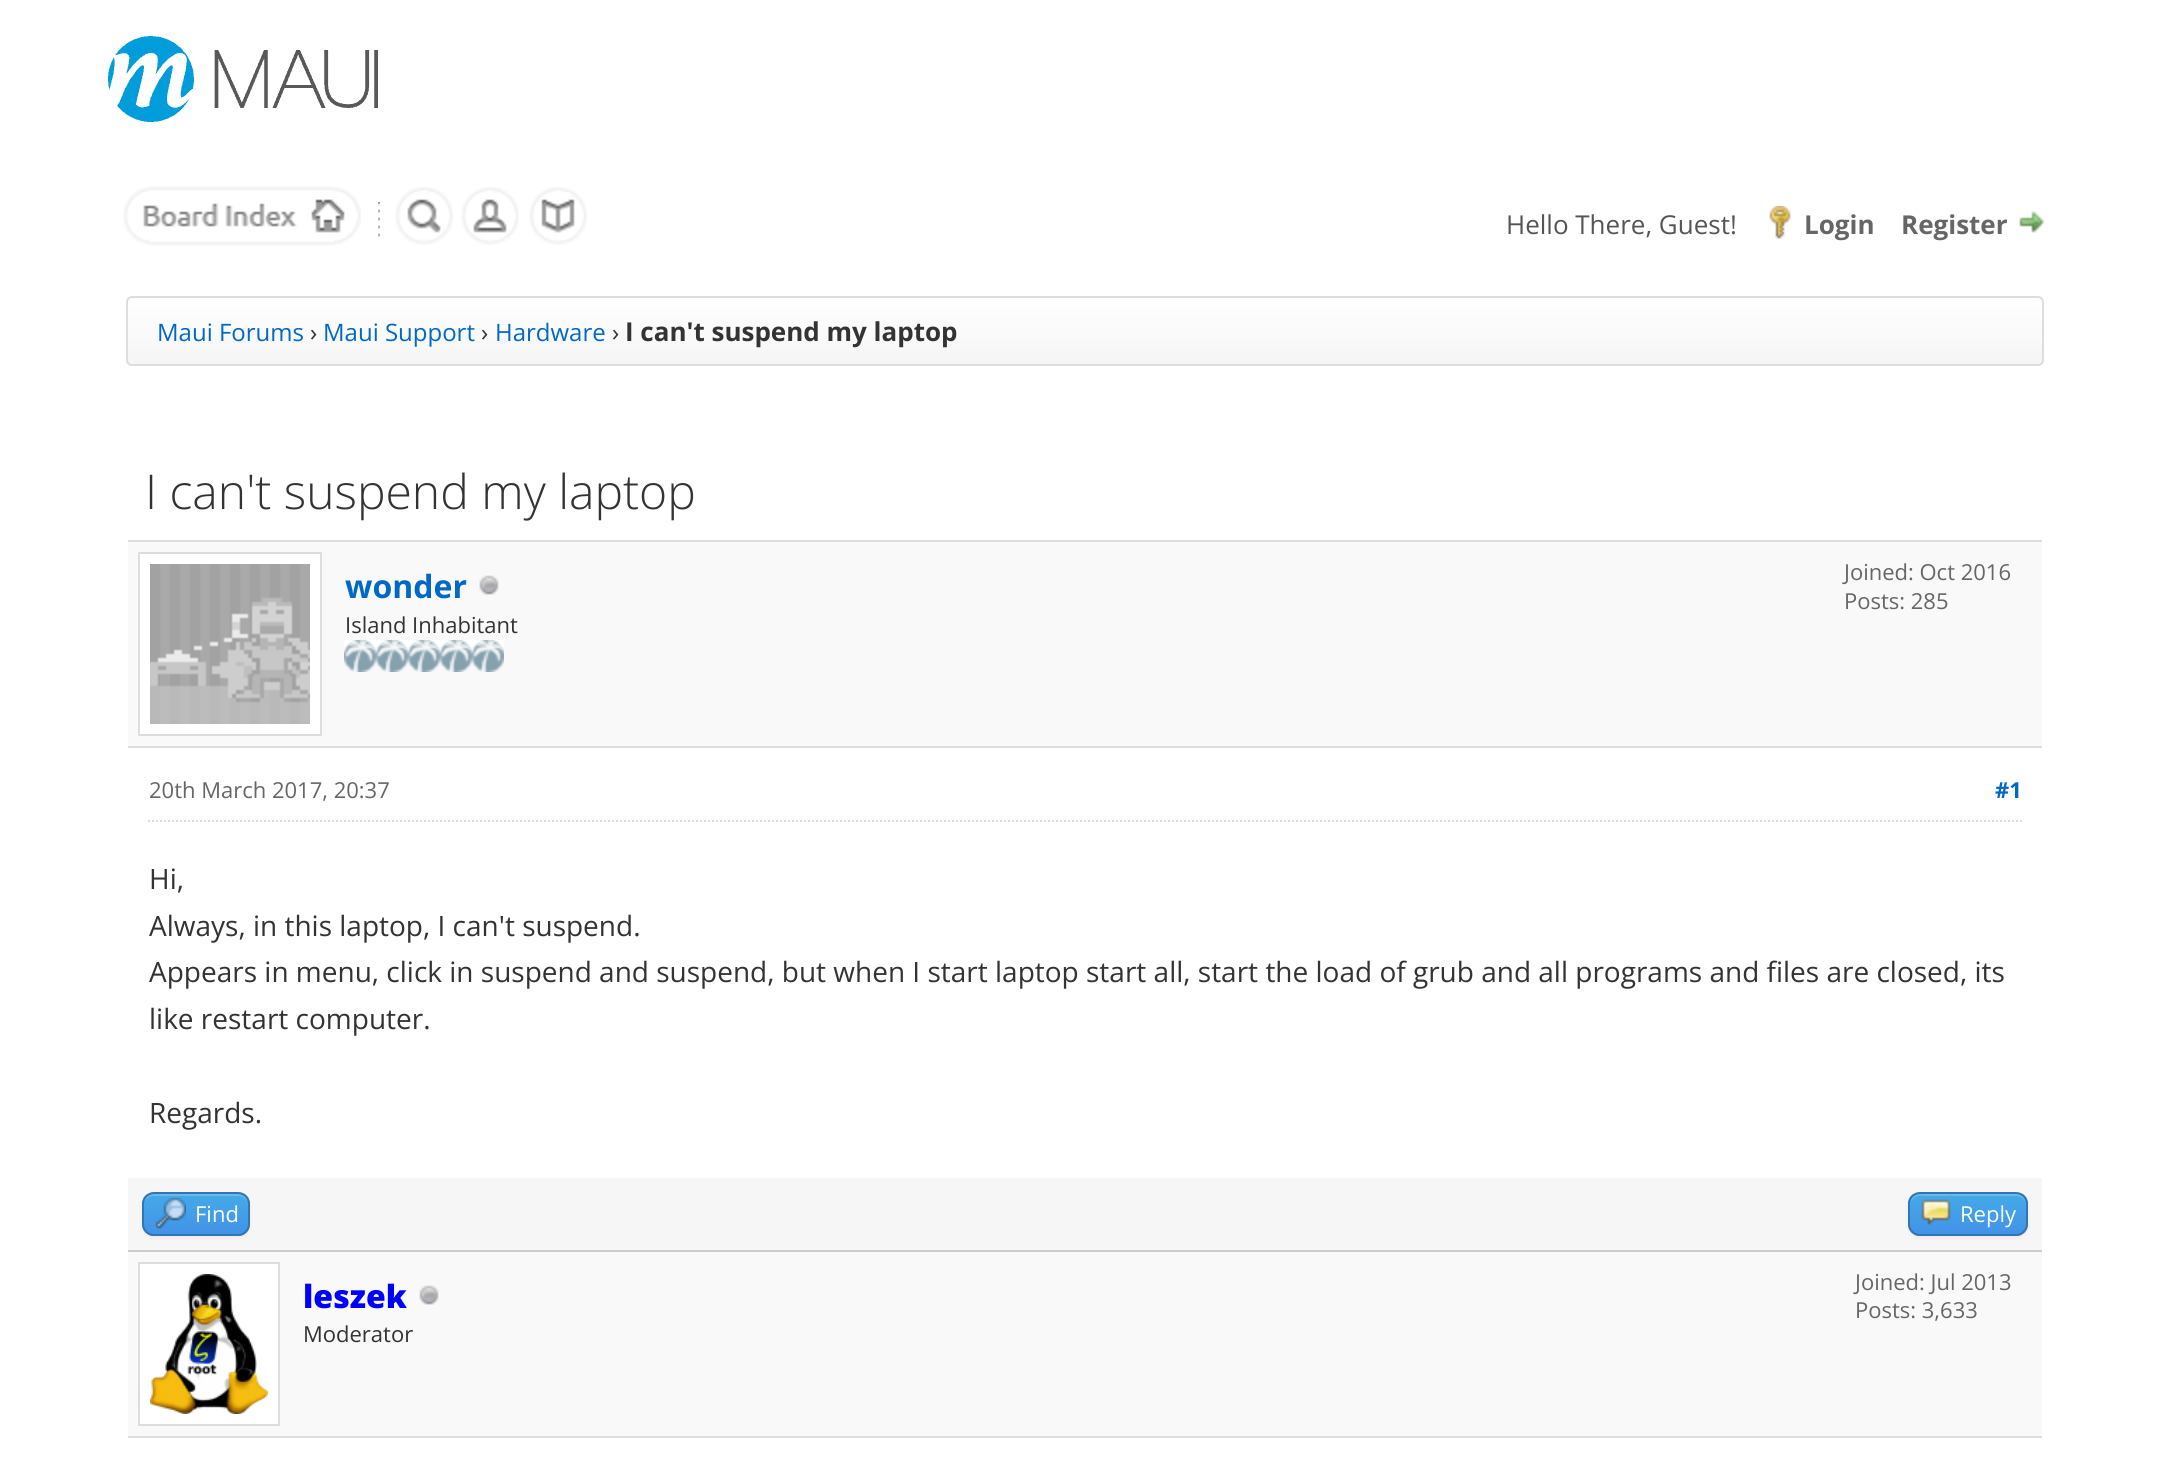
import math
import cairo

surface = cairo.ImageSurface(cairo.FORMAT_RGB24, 2169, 1472)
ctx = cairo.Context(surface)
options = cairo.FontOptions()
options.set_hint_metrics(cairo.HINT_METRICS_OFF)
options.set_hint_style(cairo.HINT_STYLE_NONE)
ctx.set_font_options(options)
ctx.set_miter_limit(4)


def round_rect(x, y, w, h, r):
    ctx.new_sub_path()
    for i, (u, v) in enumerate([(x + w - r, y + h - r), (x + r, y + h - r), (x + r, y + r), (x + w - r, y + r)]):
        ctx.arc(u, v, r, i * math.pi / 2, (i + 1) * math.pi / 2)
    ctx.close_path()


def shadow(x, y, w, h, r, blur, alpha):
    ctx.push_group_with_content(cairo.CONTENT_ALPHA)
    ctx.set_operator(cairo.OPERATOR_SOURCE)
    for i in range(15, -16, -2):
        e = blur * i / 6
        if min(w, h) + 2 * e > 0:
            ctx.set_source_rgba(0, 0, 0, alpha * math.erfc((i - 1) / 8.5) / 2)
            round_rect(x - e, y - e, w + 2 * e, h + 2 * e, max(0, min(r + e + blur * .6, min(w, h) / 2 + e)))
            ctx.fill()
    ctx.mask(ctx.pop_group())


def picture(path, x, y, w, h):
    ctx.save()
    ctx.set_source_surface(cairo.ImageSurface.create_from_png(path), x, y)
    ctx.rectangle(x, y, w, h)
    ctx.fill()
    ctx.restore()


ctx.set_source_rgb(1, 1, 1)
ctx.paint()
picture("img1.png", 108, 36, 270, 86)
picture("img2.png", 123, 186, 238, 60)
picture("img3.png", 378, 202, 2, 35)
picture("img4.png", 395, 187, 58, 58)
picture("img5.png", 461, 187, 58, 58)
picture("img6.png", 529, 187, 58, 58)
ctx.select_font_face("Open Sans")
ctx.set_font_size(26)
ctx.set_source_rgb(0.333, 0.333, 0.333)
ctx.move_to(1506, 234)
ctx.show_text("Hello There, Guest!")
picture("img7.png", 1769, 206, 22, 33)
ctx.select_font_face("Open Sans", cairo.FONT_SLANT_NORMAL, cairo.FONT_WEIGHT_BOLD)
ctx.set_source_rgb(0.4, 0.4, 0.4)
ctx.move_to(1804, 234)
ctx.show_text("Login")
ctx.move_to(1901, 234)
ctx.show_text("Register")
picture("img8.png", 2019, 211, 26, 22)
ctx.save()
round_rect(126, 296, 1918, 70, 6)
ctx.clip()
gradient = cairo.LinearGradient(1085, 298, 1085, 364)
gradient.add_color_stop_rgba(0, 1, 1, 1, 1)
gradient.add_color_stop_rgba(1, 0.961, 0.961, 0.961, 1)
ctx.set_source(gradient)
ctx.rectangle(126, 298, 1918, 66)
ctx.fill()
ctx.restore()
round_rect(127, 297, 1916, 68, 5)
ctx.set_source_rgb(0.867, 0.867, 0.867)
ctx.stroke()
ctx.select_font_face("Open Sans")
ctx.set_font_size(24)
ctx.set_source_rgb(0, 0.408, 0.776)
ctx.move_to(157, 341)
ctx.show_text("Maui Forums")
ctx.set_source_rgb(0.2, 0.2, 0.2)
ctx.move_to(310, 341)
ctx.show_text("›")
ctx.set_source_rgb(0, 0.408, 0.776)
ctx.move_to(323, 341)
ctx.show_text("Maui Support")
ctx.set_source_rgb(0.2, 0.2, 0.2)
ctx.move_to(481, 341)
ctx.show_text("›")
ctx.set_source_rgb(0, 0.408, 0.776)
ctx.move_to(495, 341)
ctx.show_text("Hardware")
ctx.set_source_rgb(0.2, 0.2, 0.2)
ctx.move_to(612, 341)
ctx.show_text("›")
ctx.select_font_face("Open Sans", cairo.FONT_SLANT_NORMAL, cairo.FONT_WEIGHT_BOLD)
ctx.set_font_size(26)
ctx.move_to(625, 341)
ctx.show_text("I can't suspend my laptop")
ctx.set_source_rgb(0.867, 0.867, 0.867)
ctx.rectangle(128, 540, 1914, 2)
ctx.fill()
ctx.select_font_face("Open Sans Light")
ctx.set_font_size(48)
ctx.set_source_rgb(0.2, 0.2, 0.2)
ctx.move_to(145, 509)
ctx.show_text("I can't suspend my laptop")
ctx.set_source_rgb(0.973, 0.973, 0.973)
ctx.rectangle(128, 542, 1914, 204)
ctx.fill()
ctx.set_source_rgb(0.867, 0.867, 0.867)
ctx.rectangle(128, 746, 1914, 2)
ctx.fill()
ctx.set_source_rgb(1, 1, 1)
ctx.rectangle(139, 553, 182, 182)
ctx.fill_preserve()
ctx.set_source_rgb(0.867, 0.867, 0.867)
ctx.stroke()
picture("img9.png", 150, 564, 160, 160)
ctx.select_font_face("Open Sans", cairo.FONT_SLANT_NORMAL, cairo.FONT_WEIGHT_BOLD)
ctx.set_font_size(32)
ctx.set_source_rgb(0, 0.408, 0.776)
ctx.move_to(345, 598)
ctx.show_text("wonder")
picture("img10.png", 479, 575, 20, 20)
ctx.select_font_face("Open Sans")
ctx.set_font_size(22)
ctx.set_source_rgb(0.2, 0.2, 0.2)
ctx.move_to(345, 633)
ctx.show_text("Island Inhabitant")
picture("img11.png", 344, 640, 32, 32)
picture("img11.png", 376, 640, 32, 32)
picture("img11.png", 408, 640, 32, 32)
picture("img11.png", 440, 640, 32, 32)
picture("img11.png", 472, 640, 32, 32)
ctx.set_source_rgb(0.4, 0.4, 0.4)
ctx.move_to(1844, 580)
ctx.show_text("Joined: Oct 2016")
ctx.move_to(1844, 609)
ctx.show_text("Posts: 285")
ctx.new_path()
ctx.move_to(148, 821)
ctx.line_to(2022, 821)
ctx.set_source_rgb(0.867, 0.867, 0.867)
ctx.set_dash([2, 2])
ctx.stroke()
ctx.set_source_rgb(0.4, 0.4, 0.4)
ctx.move_to(149, 798)
ctx.show_text("20th March 2017, 20:37")
ctx.select_font_face("Open Sans", cairo.FONT_SLANT_NORMAL, cairo.FONT_WEIGHT_BOLD)
ctx.set_source_rgb(0, 0.408, 0.776)
ctx.move_to(1995, 798)
ctx.show_text("#1")
ctx.select_font_face("Open Sans")
ctx.set_font_size(28)
ctx.set_source_rgb(0.2, 0.2, 0.2)
ctx.move_to(149, 889)
ctx.show_text("Hi,")
ctx.move_to(149, 936)
ctx.show_text("Always, in this laptop, I can't suspend.")
ctx.move_to(149, 982)
ctx.show_text("Appears in menu, click in suspend and suspend, but when I start laptop start all, start the load of grub and all programs and files are closed, its")
ctx.move_to(149, 1029)
ctx.show_text("like restart computer.")
ctx.move_to(149, 1123)
ctx.show_text("Regards.")
ctx.set_source_rgb(0.961, 0.961, 0.961)
ctx.rectangle(128, 1178, 1914, 72)
ctx.fill()
ctx.set_source_rgb(0.8, 0.8, 0.8)
ctx.rectangle(128, 1250, 1914, 2)
ctx.fill()
ctx.set_source_rgb(0, 0, 0)
shadow(142, 1194, 108, 44, 12, 2, 0.05)
picture("img12.png", 142, 1194, 108, 42)
ctx.set_source_rgb(0.412, 0.725, 0.929)
ctx.new_path()
ctx.move_to(154, 1196)
ctx.line_to(238, 1196)
ctx.curve_to(244, 1196, 248, 1200, 248, 1206)
ctx.curve_to(248, 1191, 235, 1194, 224, 1194)
ctx.line_to(168, 1194)
ctx.curve_to(157, 1194, 144, 1191, 144, 1206)
ctx.curve_to(144, 1200, 148, 1196, 154, 1196)
ctx.close_path()
ctx.fill()
round_rect(143, 1193, 106, 42, 11)
ctx.set_source_rgb(0.2, 0.463, 0.686)
ctx.set_dash([])
ctx.stroke()
picture("img13.png", 155, 1198, 31, 31)
ctx.set_font_size(22)
ctx.set_source_rgb(1, 1, 1)
ctx.move_to(195, 1222)
ctx.show_text("Find")
ctx.set_source_rgb(0, 0, 0)
shadow(1908, 1194, 120, 44, 12, 2, 0.05)
picture("img14.png", 1908, 1194, 120, 42)
ctx.set_source_rgb(0.412, 0.725, 0.929)
ctx.new_path()
ctx.move_to(1920, 1196)
ctx.line_to(2016, 1196)
ctx.curve_to(2022, 1196, 2026, 1200, 2026, 1206)
ctx.curve_to(2026, 1190, 2012, 1194, 2000, 1194)
ctx.line_to(1936, 1194)
ctx.curve_to(1924, 1194, 1910, 1190, 1910, 1206)
ctx.curve_to(1910, 1200, 1914, 1196, 1920, 1196)
ctx.close_path()
ctx.fill()
round_rect(1909, 1193, 118, 42, 11)
ctx.set_source_rgb(0.2, 0.463, 0.686)
ctx.stroke()
picture("img15.png", 1921, 1199, 30, 26)
ctx.set_source_rgb(1, 1, 1)
ctx.move_to(1960, 1222)
ctx.show_text("Reply")
ctx.set_source_rgb(0.973, 0.973, 0.973)
ctx.rectangle(128, 1252, 1914, 184)
ctx.fill()
ctx.set_source_rgb(0.867, 0.867, 0.867)
ctx.rectangle(128, 1436, 1914, 2)
ctx.fill()
ctx.set_source_rgb(1, 1, 1)
ctx.rectangle(139, 1263, 140, 162)
ctx.fill_preserve()
ctx.set_source_rgb(0.867, 0.867, 0.867)
ctx.stroke()
picture("img16.png", 150, 1274, 118, 140)
ctx.select_font_face("Open Sans ExtraBold")
ctx.set_font_size(32)
ctx.set_source_rgb(0, 0, 1)
ctx.move_to(303, 1308)
ctx.show_text("leszek")
picture("img10.png", 419, 1285, 20, 20)
ctx.select_font_face("Open Sans")
ctx.set_font_size(22)
ctx.set_source_rgb(0.2, 0.2, 0.2)
ctx.move_to(303, 1342)
ctx.show_text("Moderator")
ctx.set_source_rgb(0.4, 0.4, 0.4)
ctx.move_to(1855, 1290)
ctx.show_text("Joined: Jul 2013")
ctx.move_to(1855, 1318)
ctx.show_text("Posts: 3,633")
surface.write_to_png("page.png")
